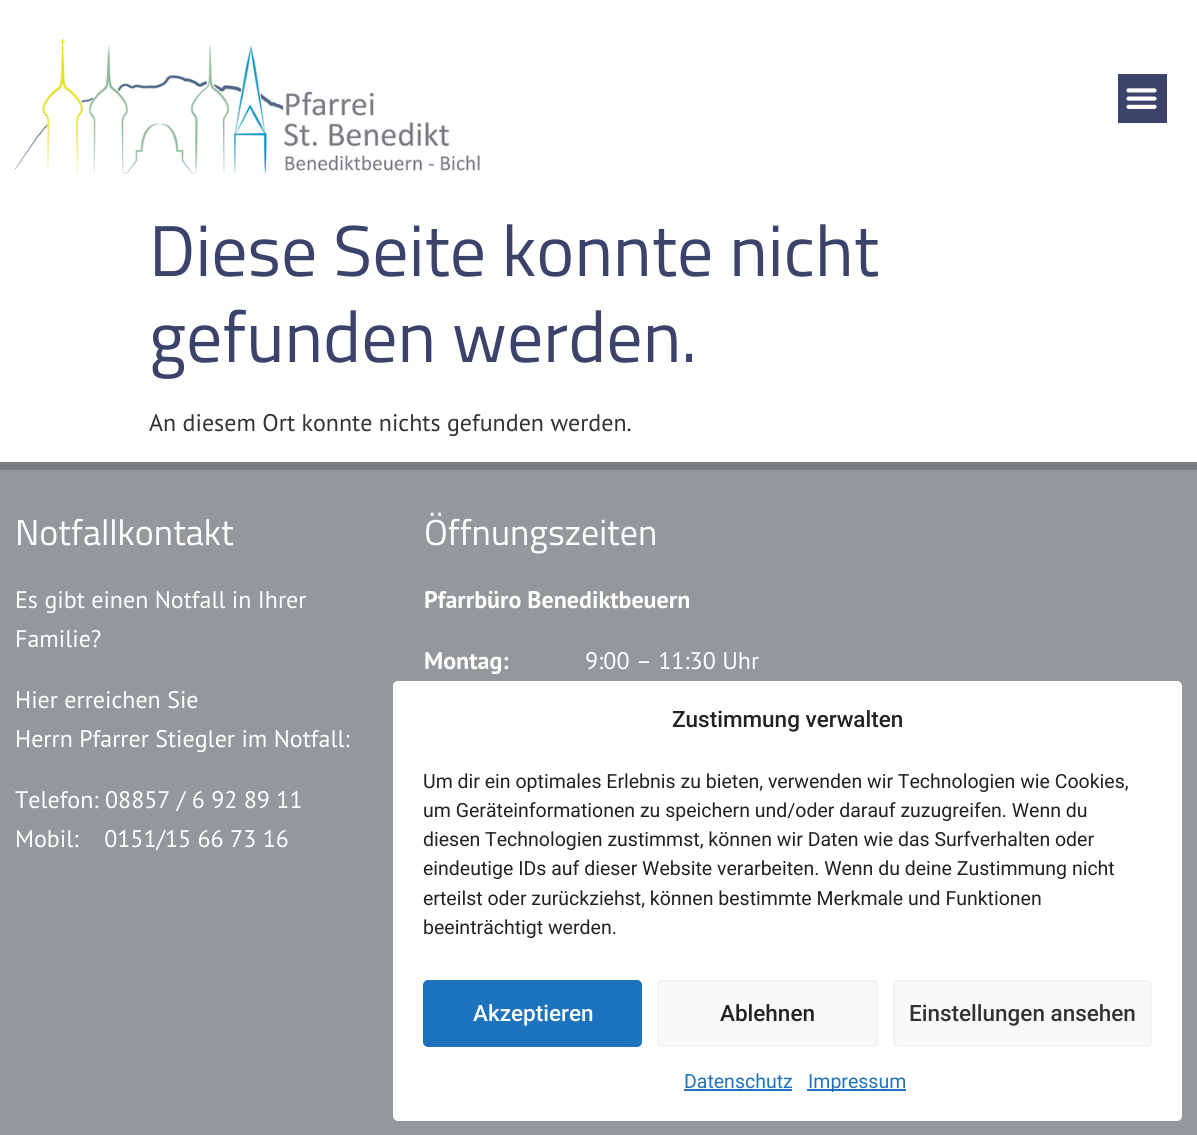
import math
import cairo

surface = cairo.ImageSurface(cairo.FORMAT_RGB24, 1197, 1135)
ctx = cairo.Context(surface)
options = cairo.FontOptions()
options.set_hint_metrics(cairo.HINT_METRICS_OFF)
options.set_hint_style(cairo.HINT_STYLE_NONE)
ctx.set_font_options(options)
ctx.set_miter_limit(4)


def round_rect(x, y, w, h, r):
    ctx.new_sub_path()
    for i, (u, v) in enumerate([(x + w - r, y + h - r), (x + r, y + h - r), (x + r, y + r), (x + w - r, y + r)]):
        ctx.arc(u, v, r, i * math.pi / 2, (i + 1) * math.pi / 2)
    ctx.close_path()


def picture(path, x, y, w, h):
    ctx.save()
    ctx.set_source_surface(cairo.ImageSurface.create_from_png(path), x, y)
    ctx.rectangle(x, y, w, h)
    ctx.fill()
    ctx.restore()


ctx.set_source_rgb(1, 1, 1)
ctx.paint()
picture("img1.png", 15, 38, 465, 136)
ctx.set_source_rgb(0.231, 0.263, 0.416)
ctx.rectangle(1118, 74, 49, 49)
ctx.fill()
picture("img2.png", 1126, 88, 31, 21)
ctx.select_font_face("Titillium Web")
ctx.set_font_size(72)
ctx.move_to(149, 276)
ctx.show_text("Diese Seite konnte nicht")
ctx.move_to(149, 362)
ctx.show_text("gefunden werden.")
ctx.select_font_face("PT Sans")
ctx.set_font_size(24)
ctx.set_source_rgb(0.2, 0.2, 0.2)
ctx.move_to(149, 431)
ctx.show_text("An diesem Ort konnte nichts gefunden werden.")
ctx.set_source_rgb(0.58, 0.596, 0.604)
ctx.rectangle(0, 470, 1197, 665)
ctx.fill()
ctx.set_source_rgb(0.478, 0.494, 0.51)
ctx.rectangle(0, 462, 1197, 8)
ctx.fill()
ctx.select_font_face("Titillium Web")
ctx.set_font_size(36)
ctx.set_source_rgb(1, 1, 1)
ctx.move_to(15, 545)
ctx.show_text("Notfallkontakt")
ctx.select_font_face("PT Sans")
ctx.set_font_size(24)
ctx.move_to(15, 608)
ctx.show_text("Es gibt einen Notfall in Ihrer")
ctx.move_to(15, 647)
ctx.show_text("Familie?")
ctx.move_to(15, 708)
ctx.show_text("Hier erreichen Sie")
ctx.move_to(15, 747)
ctx.show_text("Herrn Pfarrer Stiegler im Notfall:")
ctx.move_to(15, 808)
ctx.show_text("Telefon: 08857 / 6 92 89 11")
ctx.move_to(15, 847)
ctx.show_text("Mobil:    0151/15 66 73 16")
ctx.select_font_face("Titillium Web")
ctx.set_font_size(36)
ctx.move_to(424, 545)
ctx.show_text("Öffnungszeiten")
ctx.select_font_face("PT Sans", cairo.FONT_SLANT_NORMAL, cairo.FONT_WEIGHT_BOLD)
ctx.set_font_size(24)
ctx.move_to(424, 608)
ctx.show_text("Pfarrbüro Benediktbeuern")
ctx.move_to(424, 669)
ctx.show_text("Montag:")
ctx.select_font_face("PT Sans")
ctx.move_to(585, 669)
ctx.show_text("9:00 – 11:30 Uhr")
round_rect(393, 681, 789, 440, 5)
ctx.fill()
ctx.select_font_face("Roboto Medium")
ctx.set_font_size(22.5)
ctx.set_source_rgb(0.133, 0.133, 0.133)
ctx.move_to(672, 727)
ctx.show_text("Zustimmung verwalten")
ctx.select_font_face("Roboto")
ctx.set_font_size(19.5)
ctx.move_to(423, 788)
ctx.show_text("Um dir ein optimales Erlebnis zu bieten, verwenden wir Technologien wie Cookies,")
ctx.move_to(423, 817)
ctx.show_text("um Geräteinformationen zu speichern und/oder darauf zuzugreifen. Wenn du")
ctx.move_to(423, 846)
ctx.show_text("diesen Technologien zustimmst, können wir Daten wie das Surfverhalten oder")
ctx.move_to(423, 875)
ctx.show_text("eindeutige IDs auf dieser Website verarbeiten. Wenn du deine Zustimmung nicht")
ctx.move_to(423, 905)
ctx.show_text("erteilst oder zurückziehst, können bestimmte Merkmale und Funktionen")
ctx.move_to(423, 934)
ctx.show_text("beeinträchtigt werden.")
ctx.set_source_rgb(0.118, 0.451, 0.745)
round_rect(424, 981, 217, 65, 4)
ctx.fill_preserve()
ctx.stroke()
ctx.select_font_face("Roboto Medium")
ctx.set_font_size(22.5)
ctx.set_source_rgb(1, 1, 1)
ctx.move_to(473, 1021)
ctx.show_text("Akzeptieren")
ctx.set_source_rgb(0.976, 0.976, 0.976)
round_rect(658, 981, 219, 65, 4)
ctx.fill_preserve()
ctx.set_source_rgb(0.949, 0.949, 0.949)
ctx.stroke()
ctx.set_source_rgb(0.133, 0.133, 0.133)
ctx.move_to(720, 1021)
ctx.show_text("Ablehnen")
ctx.set_source_rgb(0.976, 0.976, 0.976)
round_rect(894, 981, 257, 65, 4)
ctx.fill_preserve()
ctx.set_source_rgb(0.949, 0.949, 0.949)
ctx.stroke()
ctx.set_source_rgb(0.2, 0.2, 0.2)
ctx.move_to(909, 1021)
ctx.show_text("Einstellungen ansehen")
ctx.select_font_face("Roboto")
ctx.set_font_size(19.5)
ctx.set_source_rgb(0.118, 0.451, 0.745)
ctx.move_to(684, 1088)
ctx.show_text("Datenschutz")
ctx.rectangle(684, 1089, 108, 2)
ctx.fill()
ctx.rectangle(807, 1089, 99, 2)
ctx.fill()
ctx.move_to(808, 1088)
ctx.show_text("Impressum")
surface.write_to_png("page.png")
